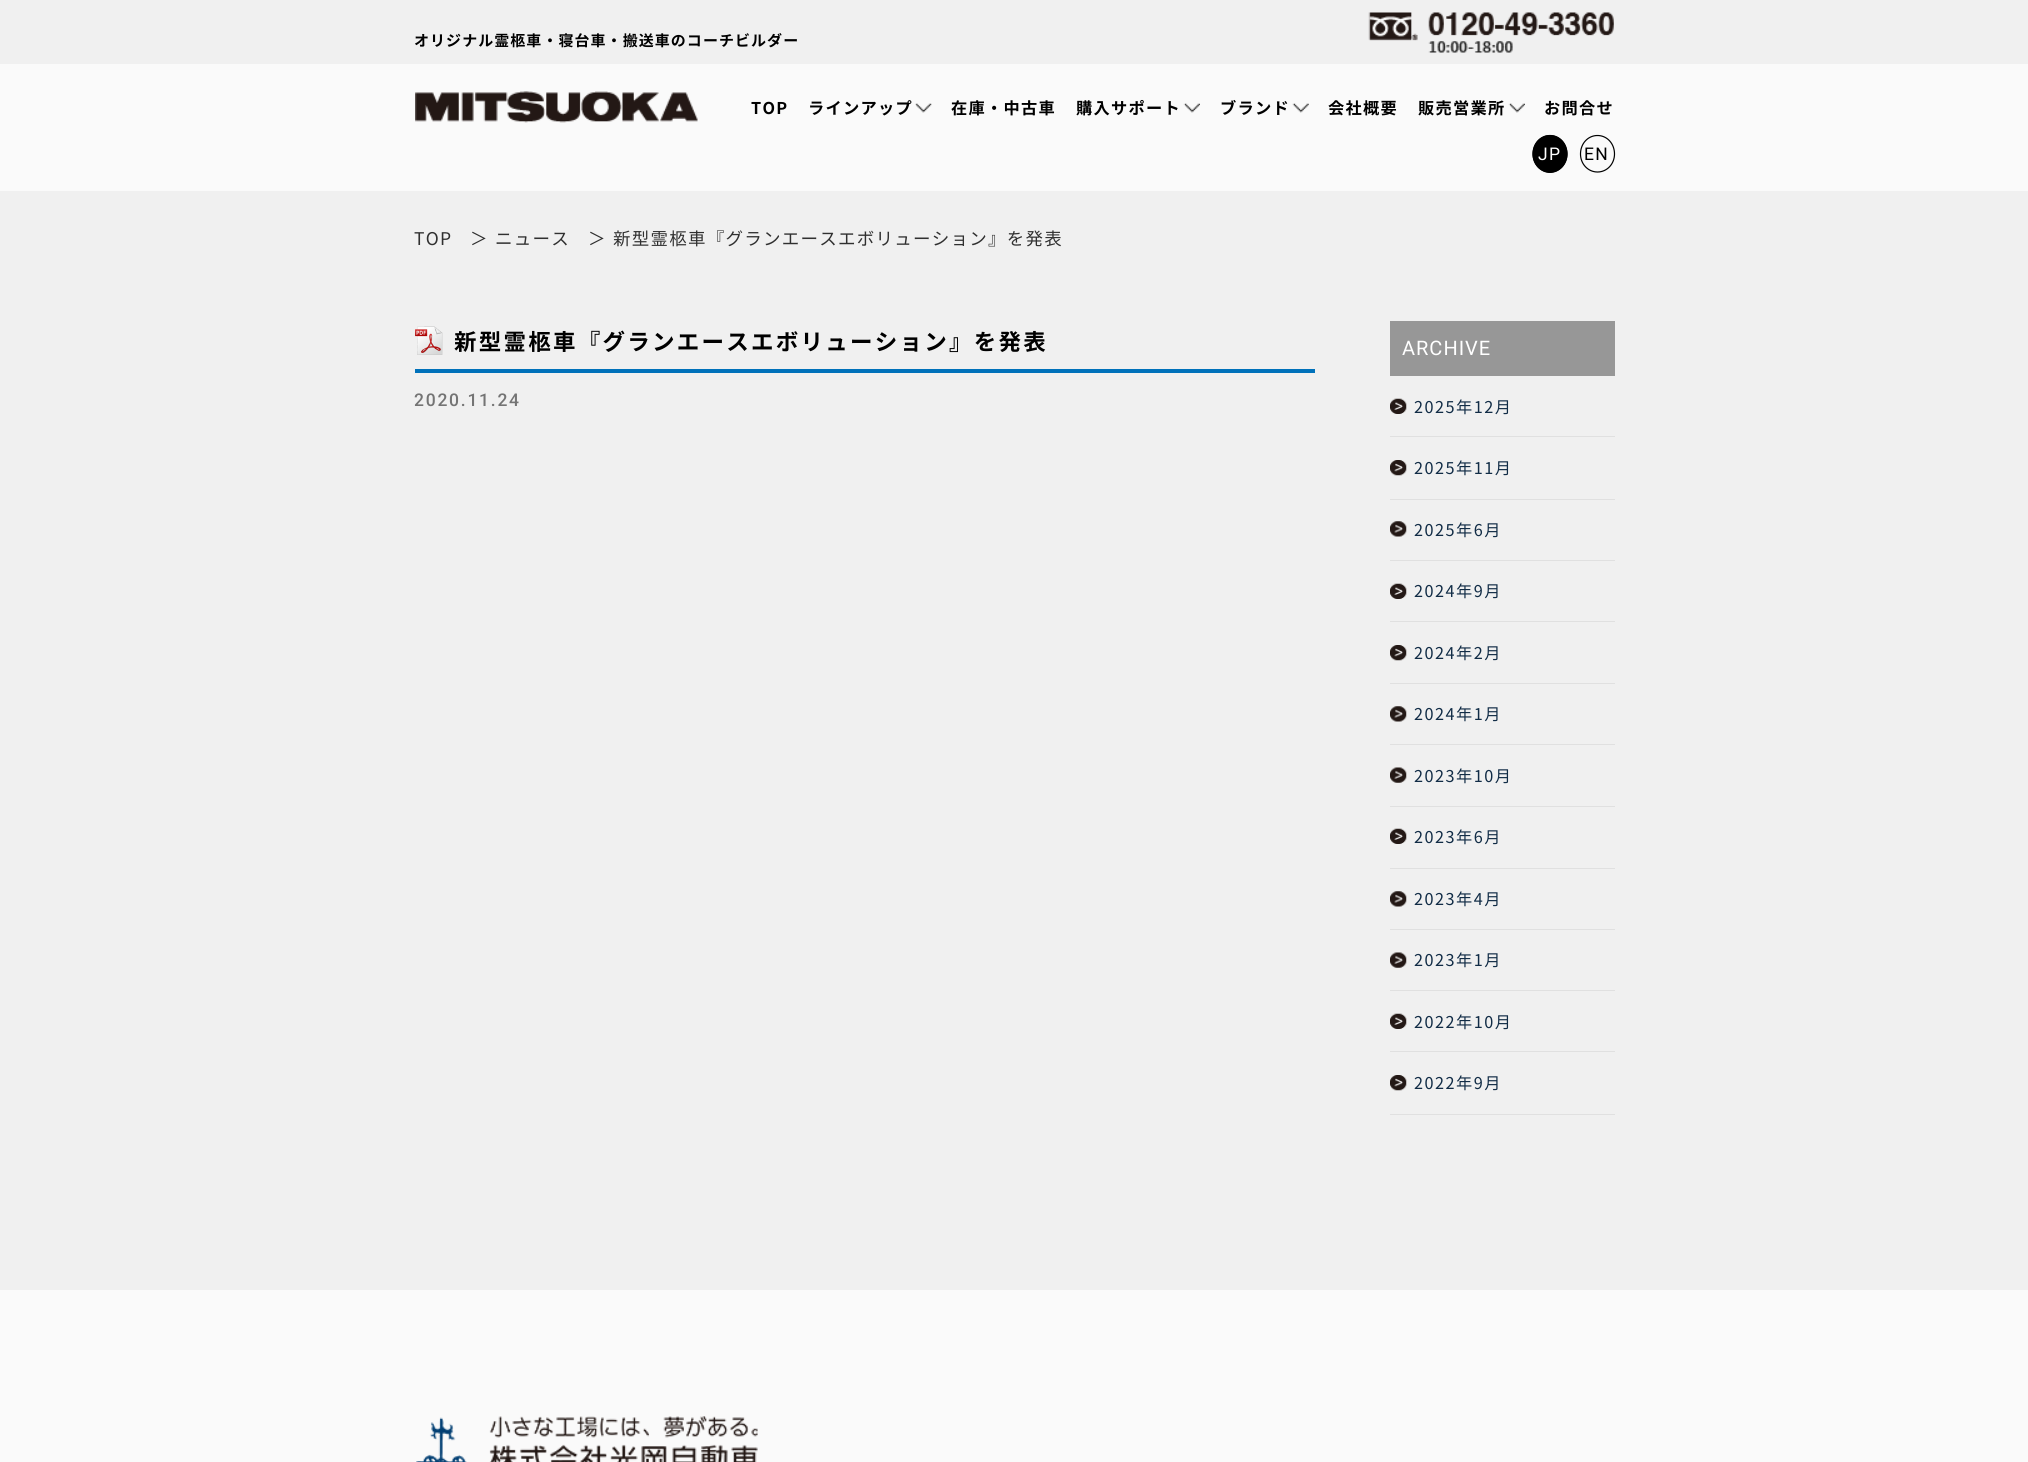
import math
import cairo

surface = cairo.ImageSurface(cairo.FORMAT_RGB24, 2028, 1462)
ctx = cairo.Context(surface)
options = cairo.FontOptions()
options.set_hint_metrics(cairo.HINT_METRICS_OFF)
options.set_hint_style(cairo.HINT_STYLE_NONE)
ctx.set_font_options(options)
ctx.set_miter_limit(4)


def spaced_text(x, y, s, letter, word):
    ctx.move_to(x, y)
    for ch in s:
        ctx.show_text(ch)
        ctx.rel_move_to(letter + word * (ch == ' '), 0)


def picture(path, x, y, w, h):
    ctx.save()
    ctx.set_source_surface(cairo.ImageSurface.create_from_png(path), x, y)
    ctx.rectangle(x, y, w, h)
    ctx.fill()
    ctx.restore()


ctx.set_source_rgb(0.941, 0.941, 0.941)
ctx.paint()
ctx.select_font_face("Noto Sans JP", cairo.FONT_SLANT_NORMAL, cairo.FONT_WEIGHT_BOLD)
ctx.set_font_size(15)
ctx.set_source_rgb(0, 0, 0)
spaced_text(414, 46, "オリジナル霊柩車・寝台車・搬送車のコーチビルダー", 1.05, 0)
picture("img1.png", 1368, 12, 246, 41)
ctx.set_source_rgb(0.98, 0.98, 0.98)
ctx.rectangle(0, 64, 2028, 127)
ctx.fill()
picture("img2.png", 415, 91, 283, 32)
ctx.set_font_size(16.25)
ctx.set_source_rgb(0, 0, 0)
spaced_text(751, 114, "TOP", 1.25, 0)
spaced_text(808, 114, "ラインアップ", 1.25, 0)
picture("img3.png", 915, 103, 17, 10)
spaced_text(951, 114, "在庫・中古車", 1.25, 0)
spaced_text(1076, 114, "購入サポート", 1.25, 0)
picture("img4.png", 1183, 103, 17, 10)
spaced_text(1220, 114, "ブランド", 1.25, 0)
picture("img5.png", 1292, 103, 17, 10)
spaced_text(1328, 114, "会社概要", 1.25, 0)
spaced_text(1418, 114, "販売営業所", 1.25, 0)
picture("img4.png", 1508, 103, 17, 10)
spaced_text(1544, 114, "お問合せ", 1.25, 0)
ctx.new_path()
ctx.move_to(1550, 135)
ctx.curve_to(1559.5, 135, 1567.5, 143.5, 1567.5, 154)
ctx.curve_to(1567.5, 164.5, 1559.5, 173, 1550, 173)
ctx.curve_to(1540.5, 173, 1532.5, 164.5, 1532.5, 154)
ctx.curve_to(1532.5, 143.5, 1540.5, 135, 1550, 135)
ctx.close_path()
ctx.fill()
ctx.new_path()
ctx.move_to(1550, 135.5)
ctx.curve_to(1559.5, 135.5, 1567, 143.5, 1567, 154)
ctx.curve_to(1567, 164, 1559.5, 172, 1550, 172)
ctx.curve_to(1540.5, 172, 1533, 164, 1533, 154)
ctx.curve_to(1533, 143.5, 1540.5, 135.5, 1550, 135.5)
ctx.close_path()
ctx.set_line_width(1.2)
ctx.stroke()
ctx.select_font_face("Roboto")
ctx.set_font_size(17.5)
ctx.set_source_rgb(1, 1, 1)
spaced_text(1538, 160, "JP", 1.25, 0)
ctx.new_path()
ctx.move_to(1597.5, 135.5)
ctx.curve_to(1607, 135.5, 1614.5, 143.5, 1614.5, 154)
ctx.curve_to(1614.5, 164, 1607, 172, 1597.5, 172)
ctx.curve_to(1588, 172, 1580.5, 164, 1580.5, 154)
ctx.curve_to(1580.5, 143.5, 1588, 135.5, 1597.5, 135.5)
ctx.close_path()
ctx.set_source_rgb(0, 0, 0)
ctx.stroke()
spaced_text(1584, 160, "EN", 1.25, 0)
ctx.select_font_face("Noto Sans JP")
ctx.set_source_rgb(0.188, 0.188, 0.188)
spaced_text(414, 245, "TOP", 1.25, 0)
spaced_text(470, 245, "＞", 1.25, 0)
spaced_text(495, 245, "ニュース", 1.25, 0)
spaced_text(588, 245, "＞", 1.25, 0)
spaced_text(613, 245, "新型霊柩車『グランエースエボリューション』を発表", 1.25, 0)
ctx.set_source_rgb(0, 0.443, 0.729)
ctx.rectangle(415, 369, 900, 4)
ctx.fill()
picture("img6.png", 415, 326, 28, 29)
ctx.select_font_face("Noto Sans JP", cairo.FONT_SLANT_NORMAL, cairo.FONT_WEIGHT_BOLD)
ctx.set_font_size(22.5)
ctx.set_source_rgb(0, 0, 0)
spaced_text(454, 350, "新型霊柩車『グランエースエボリューション』を発表", 2.25, 0)
ctx.select_font_face("Roboto Medium")
ctx.set_font_size(17.5)
ctx.set_source_rgb(0.455, 0.455, 0.455)
spaced_text(414, 406, "2020.11.24", 1.75, 0)
ctx.set_source_rgb(0.592, 0.592, 0.592)
ctx.rectangle(1390, 321, 225, 55)
ctx.fill()
ctx.select_font_face("Roboto")
ctx.set_font_size(20)
ctx.set_source_rgb(1, 1, 1)
spaced_text(1402, 355, "ARCHIVE", 1, 0)
ctx.set_source_rgb(0.878, 0.878, 0.878)
ctx.rectangle(1390, 436, 225, 1)
ctx.fill()
picture("img7.png", 1390, 398, 17, 16)
ctx.select_font_face("Noto Sans JP")
ctx.set_font_size(16.25)
ctx.set_source_rgb(0.067, 0.173, 0.275)
spaced_text(1414, 413, "2025年12月", 1.5, 0)
ctx.set_source_rgb(0.878, 0.878, 0.878)
ctx.rectangle(1390, 499, 225, 1)
ctx.fill()
picture("img8.png", 1390, 460, 17, 16)
ctx.set_source_rgb(0.067, 0.173, 0.275)
spaced_text(1414, 474, "2025年11月", 1.5, 0)
ctx.set_source_rgb(0.878, 0.878, 0.878)
ctx.rectangle(1390, 560, 225, 1)
ctx.fill()
picture("img9.png", 1390, 521, 17, 16)
ctx.set_source_rgb(0.067, 0.173, 0.275)
spaced_text(1414, 536, "2025年6月", 1.5, 0)
ctx.set_source_rgb(0.878, 0.878, 0.878)
ctx.rectangle(1390, 621, 225, 1)
ctx.fill()
picture("img7.png", 1390, 583, 17, 16)
ctx.set_source_rgb(0.067, 0.173, 0.275)
spaced_text(1414, 597, "2024年9月", 1.5, 0)
ctx.set_source_rgb(0.878, 0.878, 0.878)
ctx.rectangle(1390, 683, 225, 1)
ctx.fill()
picture("img8.png", 1390, 645, 17, 16)
ctx.set_source_rgb(0.067, 0.173, 0.275)
spaced_text(1414, 659, "2024年2月", 1.5, 0)
ctx.set_source_rgb(0.878, 0.878, 0.878)
ctx.rectangle(1390, 744, 225, 1)
ctx.fill()
picture("img9.png", 1390, 706, 17, 16)
ctx.set_source_rgb(0.067, 0.173, 0.275)
spaced_text(1414, 720, "2024年1月", 1.5, 0)
ctx.set_source_rgb(0.878, 0.878, 0.878)
ctx.rectangle(1390, 806, 225, 1)
ctx.fill()
picture("img10.png", 1390, 767, 17, 16)
ctx.set_source_rgb(0.067, 0.173, 0.275)
spaced_text(1414, 782, "2023年10月", 1.5, 0)
ctx.set_source_rgb(0.878, 0.878, 0.878)
ctx.rectangle(1390, 868, 225, 1)
ctx.fill()
picture("img7.png", 1390, 828, 17, 16)
ctx.set_source_rgb(0.067, 0.173, 0.275)
spaced_text(1414, 843, "2023年6月", 1.5, 0)
ctx.set_source_rgb(0.878, 0.878, 0.878)
ctx.rectangle(1390, 929, 225, 1)
ctx.fill()
picture("img9.png", 1390, 891, 17, 16)
ctx.set_source_rgb(0.067, 0.173, 0.275)
spaced_text(1414, 905, "2023年4月", 1.5, 0)
ctx.set_source_rgb(0.878, 0.878, 0.878)
ctx.rectangle(1390, 990, 225, 1)
ctx.fill()
picture("img10.png", 1390, 952, 17, 16)
ctx.set_source_rgb(0.067, 0.173, 0.275)
spaced_text(1414, 966, "2023年1月", 1.5, 0)
ctx.set_source_rgb(0.878, 0.878, 0.878)
ctx.rectangle(1390, 1051, 225, 1)
ctx.fill()
picture("img7.png", 1390, 1013, 17, 16)
ctx.set_source_rgb(0.067, 0.173, 0.275)
spaced_text(1414, 1028, "2022年10月", 1.5, 0)
ctx.set_source_rgb(0.878, 0.878, 0.878)
ctx.rectangle(1390, 1114, 225, 1)
ctx.fill()
picture("img8.png", 1390, 1075, 17, 16)
ctx.set_source_rgb(0.067, 0.173, 0.275)
spaced_text(1414, 1089, "2022年9月", 1.5, 0)
ctx.set_source_rgb(0.98, 0.98, 0.98)
ctx.rectangle(0, 1290, 2028, 172)
ctx.fill()
picture("img11.png", 416, 1416, 342, 46)
surface.write_to_png("page.png")
